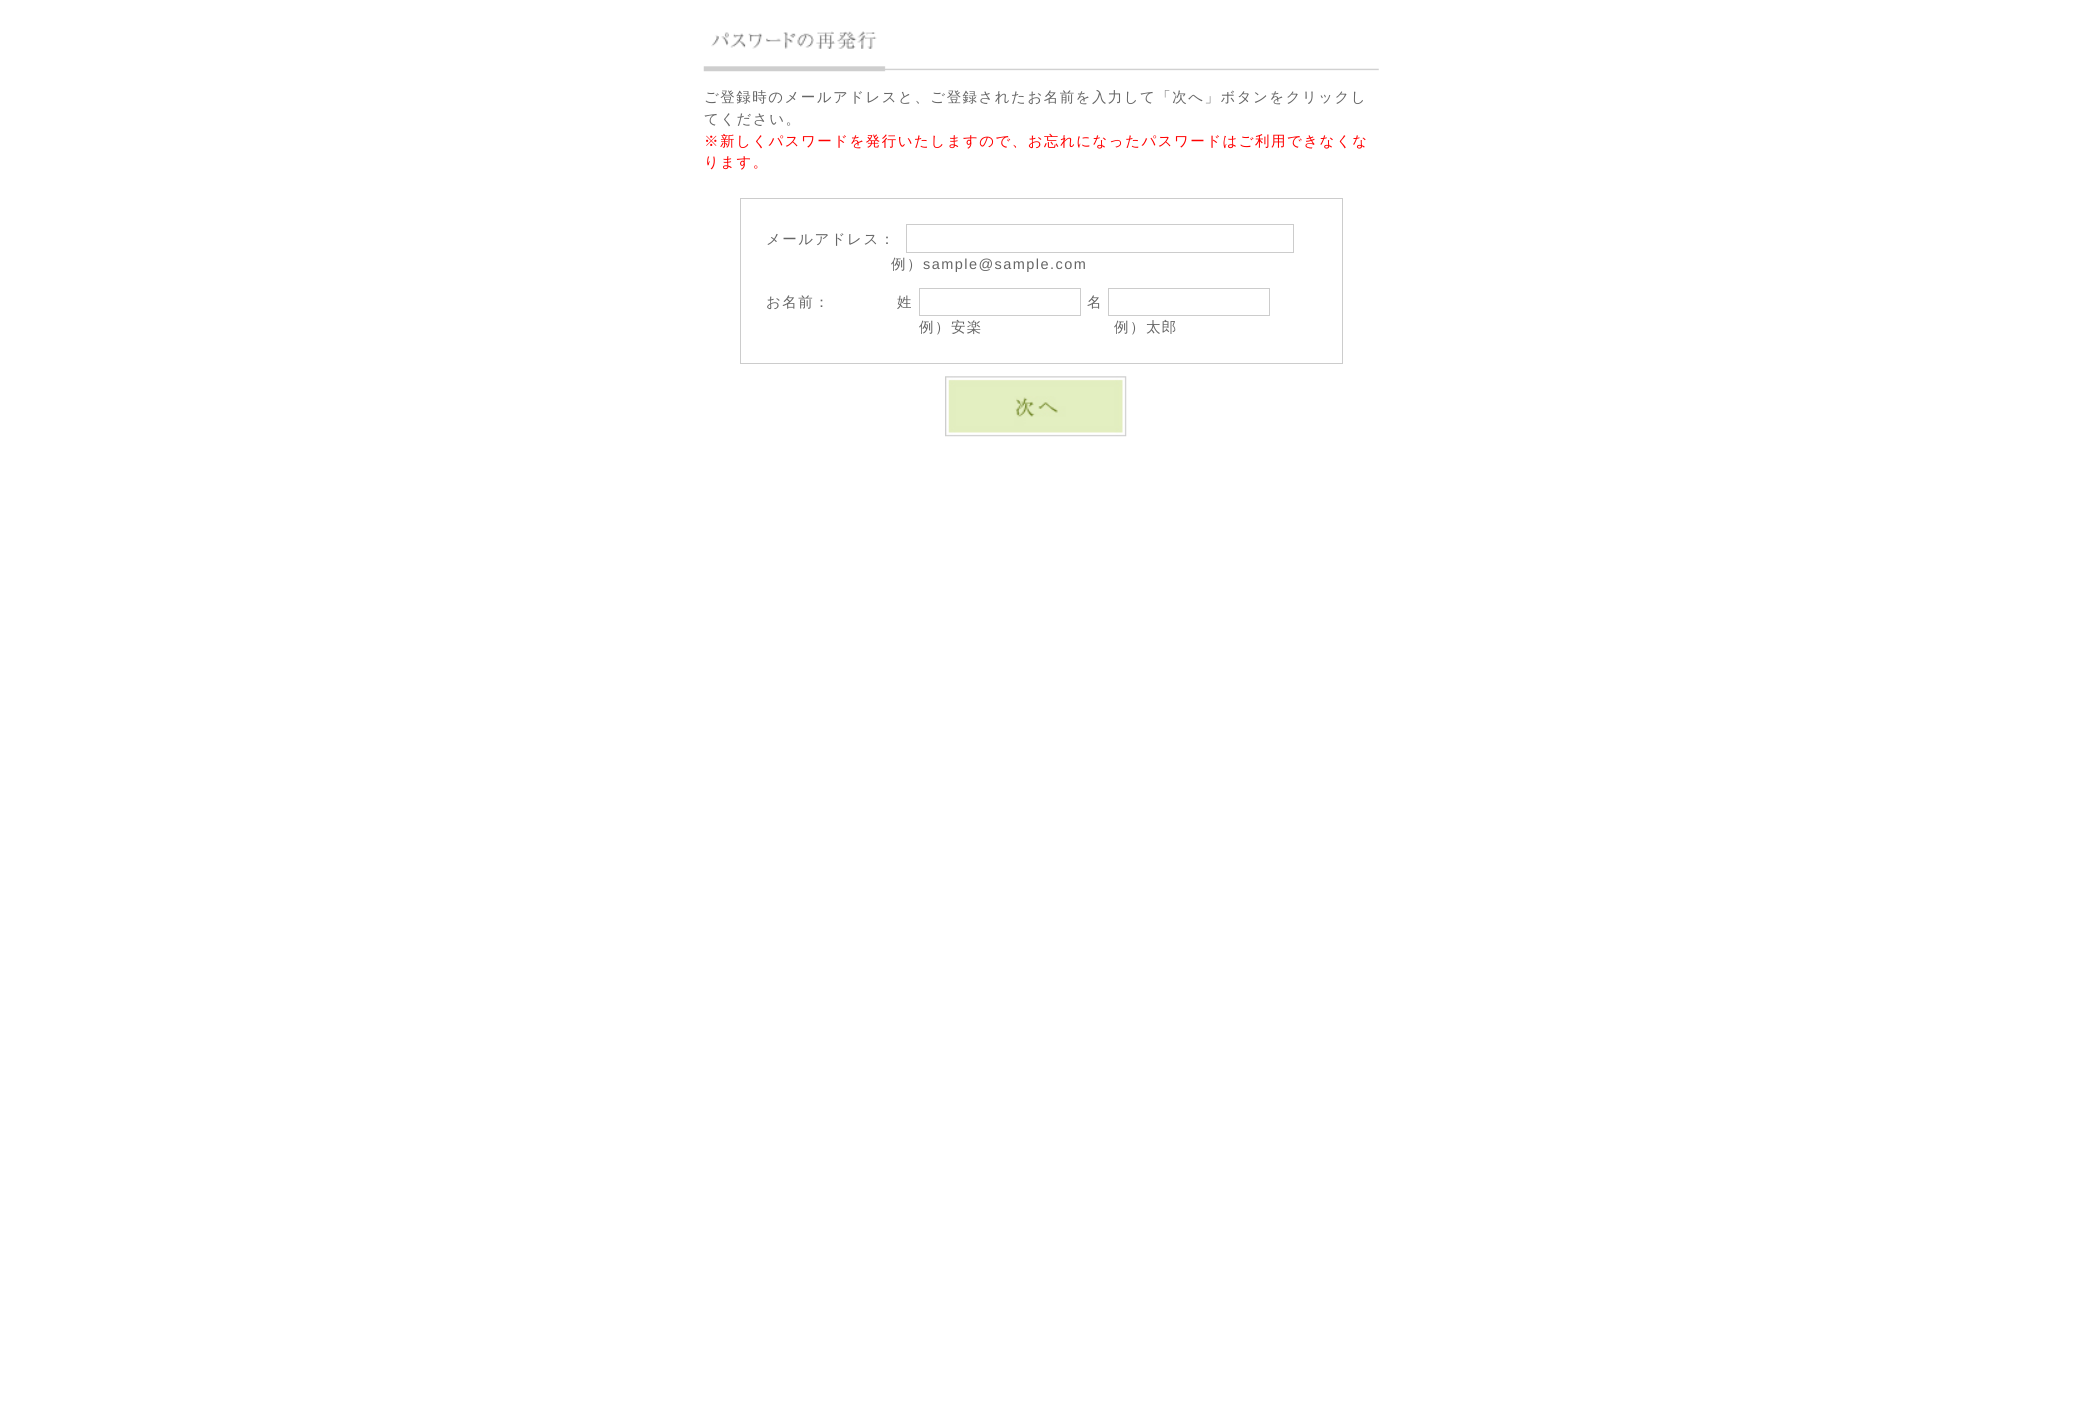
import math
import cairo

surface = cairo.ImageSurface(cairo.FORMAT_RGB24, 2082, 1401)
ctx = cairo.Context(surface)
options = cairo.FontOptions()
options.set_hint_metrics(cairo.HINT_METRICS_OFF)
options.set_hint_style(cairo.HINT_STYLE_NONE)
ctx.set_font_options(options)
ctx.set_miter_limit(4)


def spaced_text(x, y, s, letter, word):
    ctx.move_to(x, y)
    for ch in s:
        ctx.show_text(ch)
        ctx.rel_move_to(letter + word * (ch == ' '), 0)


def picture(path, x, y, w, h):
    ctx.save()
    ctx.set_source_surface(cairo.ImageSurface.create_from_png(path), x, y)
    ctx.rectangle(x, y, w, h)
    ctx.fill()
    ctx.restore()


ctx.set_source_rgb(1, 1, 1)
ctx.paint()
picture("img1.png", 703, 31, 676, 41)
ctx.select_font_face("WenQuanYi Zen Hei Medium")
ctx.set_font_size(14.5)
ctx.set_source_rgb(0.4, 0.4, 0.4)
spaced_text(704, 102, "ご登録時のメールアドレスと、ご登録されたお名前を入力して「次へ」ボタンをクリックし", 1.45, 0)
spaced_text(704, 124, "てください。", 1.45, 0)
ctx.set_source_rgb(1, 0, 0)
spaced_text(704, 146, "※新しくパスワードを発行いたしますので、お忘れになったパスワードはご利用できなくな", 1.45, 0)
spaced_text(704, 167, "ります。", 1.45, 0)
ctx.rectangle(740.5, 198.5, 602, 165)
ctx.set_source_rgb(0.8, 0.8, 0.8)
ctx.set_line_width(1)
ctx.stroke()
ctx.set_source_rgb(0.4, 0.4, 0.4)
spaced_text(766, 244, "メールアドレス：", 1.45, 0)
ctx.rectangle(906.5, 224.5, 387, 28)
ctx.set_source_rgb(0.8, 0.8, 0.8)
ctx.stroke()
ctx.set_source_rgb(0.4, 0.4, 0.4)
spaced_text(891, 269, "例）", 1.45, 0)
ctx.select_font_face("Liberation Sans")
spaced_text(923, 269, "sample@sample.com", 1.45, 0)
ctx.select_font_face("WenQuanYi Zen Hei Medium")
spaced_text(766, 307, "お名前：", 1.45, 0)
spaced_text(897, 307, "姓", 1.45, 0)
ctx.rectangle(919.5, 288.5, 161, 27)
ctx.set_source_rgb(0.8, 0.8, 0.8)
ctx.stroke()
ctx.set_source_rgb(0.4, 0.4, 0.4)
spaced_text(1087, 307, "名", 1.45, 0)
ctx.rectangle(1108.5, 288.5, 161, 27)
ctx.set_source_rgb(0.8, 0.8, 0.8)
ctx.stroke()
ctx.set_source_rgb(0.4, 0.4, 0.4)
spaced_text(919, 332, "例）安楽", 1.45, 0)
spaced_text(1114, 332, "例）太郎", 1.45, 0)
picture("img2.png", 945, 376, 182, 61)
surface.write_to_png("page.png")
